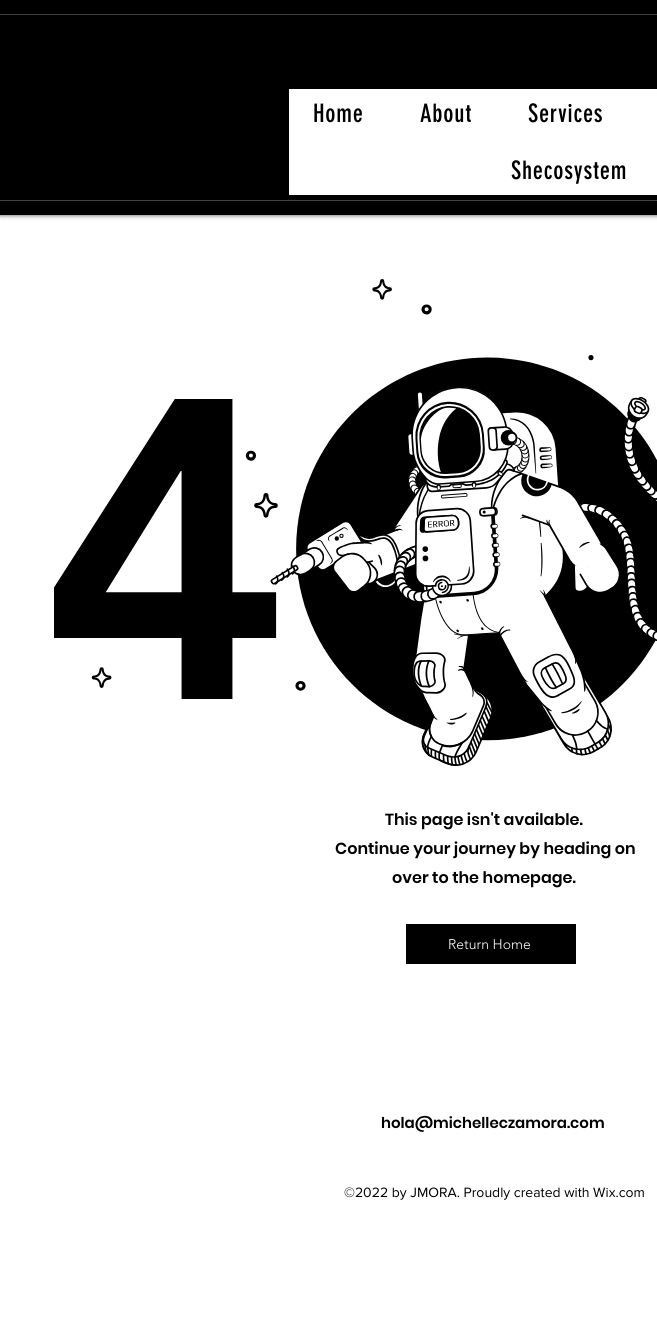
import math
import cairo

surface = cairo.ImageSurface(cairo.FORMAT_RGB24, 657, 1341)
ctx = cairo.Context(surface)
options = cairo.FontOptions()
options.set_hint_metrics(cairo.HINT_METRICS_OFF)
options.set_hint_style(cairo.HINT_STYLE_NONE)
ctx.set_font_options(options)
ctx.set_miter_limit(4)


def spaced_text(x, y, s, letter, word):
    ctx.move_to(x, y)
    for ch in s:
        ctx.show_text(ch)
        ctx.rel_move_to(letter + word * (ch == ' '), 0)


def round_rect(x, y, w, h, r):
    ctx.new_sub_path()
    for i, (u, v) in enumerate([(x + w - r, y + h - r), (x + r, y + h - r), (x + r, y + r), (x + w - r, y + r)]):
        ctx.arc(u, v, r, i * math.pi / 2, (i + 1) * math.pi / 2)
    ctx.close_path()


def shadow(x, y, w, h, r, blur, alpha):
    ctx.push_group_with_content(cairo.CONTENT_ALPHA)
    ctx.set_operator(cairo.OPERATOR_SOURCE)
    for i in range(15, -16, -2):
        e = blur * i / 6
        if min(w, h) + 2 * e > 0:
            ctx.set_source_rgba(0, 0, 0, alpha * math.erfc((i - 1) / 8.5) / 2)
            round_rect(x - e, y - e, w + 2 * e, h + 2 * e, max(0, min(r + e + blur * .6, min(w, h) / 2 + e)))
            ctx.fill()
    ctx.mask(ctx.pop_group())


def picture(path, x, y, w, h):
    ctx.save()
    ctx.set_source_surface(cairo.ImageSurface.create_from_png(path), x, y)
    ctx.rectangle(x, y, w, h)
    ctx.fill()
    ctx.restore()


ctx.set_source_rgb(1, 1, 1)
ctx.paint()
ctx.set_source_rgb(0, 0, 0)
shadow(0, 0, 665, 215, 0, 2.5, 0.7)
ctx.set_source_rgb(0, 0, 0)
ctx.rectangle(0, 0, 657, 215)
ctx.fill()
ctx.set_source_rgb(0.251, 0.251, 0.251)
ctx.rectangle(0, 14, 657, 1)
ctx.fill()
ctx.rectangle(0, 200, 657, 1)
ctx.fill()
ctx.set_source_rgb(1, 1, 1)
ctx.rectangle(289, 89, 368, 106)
ctx.fill()
ctx.select_font_face("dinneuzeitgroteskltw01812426")
ctx.set_font_size(25)
ctx.set_source_rgb(0, 0, 0)
spaced_text(313, 122, "Home", 0.75, 0)
spaced_text(420, 122, "About", 0.75, 0)
spaced_text(528, 122, "Services", 0.75, 0)
spaced_text(511, 179, "Shecosystem", 0.75, 0)
picture("img1.png", 54, 279, 603, 487)
ctx.select_font_face("Poppins SemiBold")
ctx.set_font_size(16)
ctx.move_to(385, 825)
ctx.show_text("This page isn't available.")
ctx.move_to(335, 854)
ctx.show_text("Continue your journey by heading on")
ctx.move_to(392, 883)
ctx.show_text("over to the homepage.")
ctx.rectangle(406, 924, 170, 40)
ctx.fill()
ctx.select_font_face("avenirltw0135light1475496 Light")
ctx.set_font_size(14)
ctx.set_source_rgb(1, 1, 1)
ctx.move_to(448, 949)
ctx.show_text("Return Home")
ctx.select_font_face("Poppins SemiBold")
ctx.set_font_size(15)
ctx.set_source_rgb(0, 0, 0)
ctx.move_to(381, 1128)
ctx.show_text("hola@michelleczamora.com")
ctx.select_font_face("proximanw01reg")
ctx.set_font_size(14)
ctx.move_to(344, 1197)
ctx.show_text("©2022 by JMORA. Proudly created with Wix.com")
surface.write_to_png("page.png")
